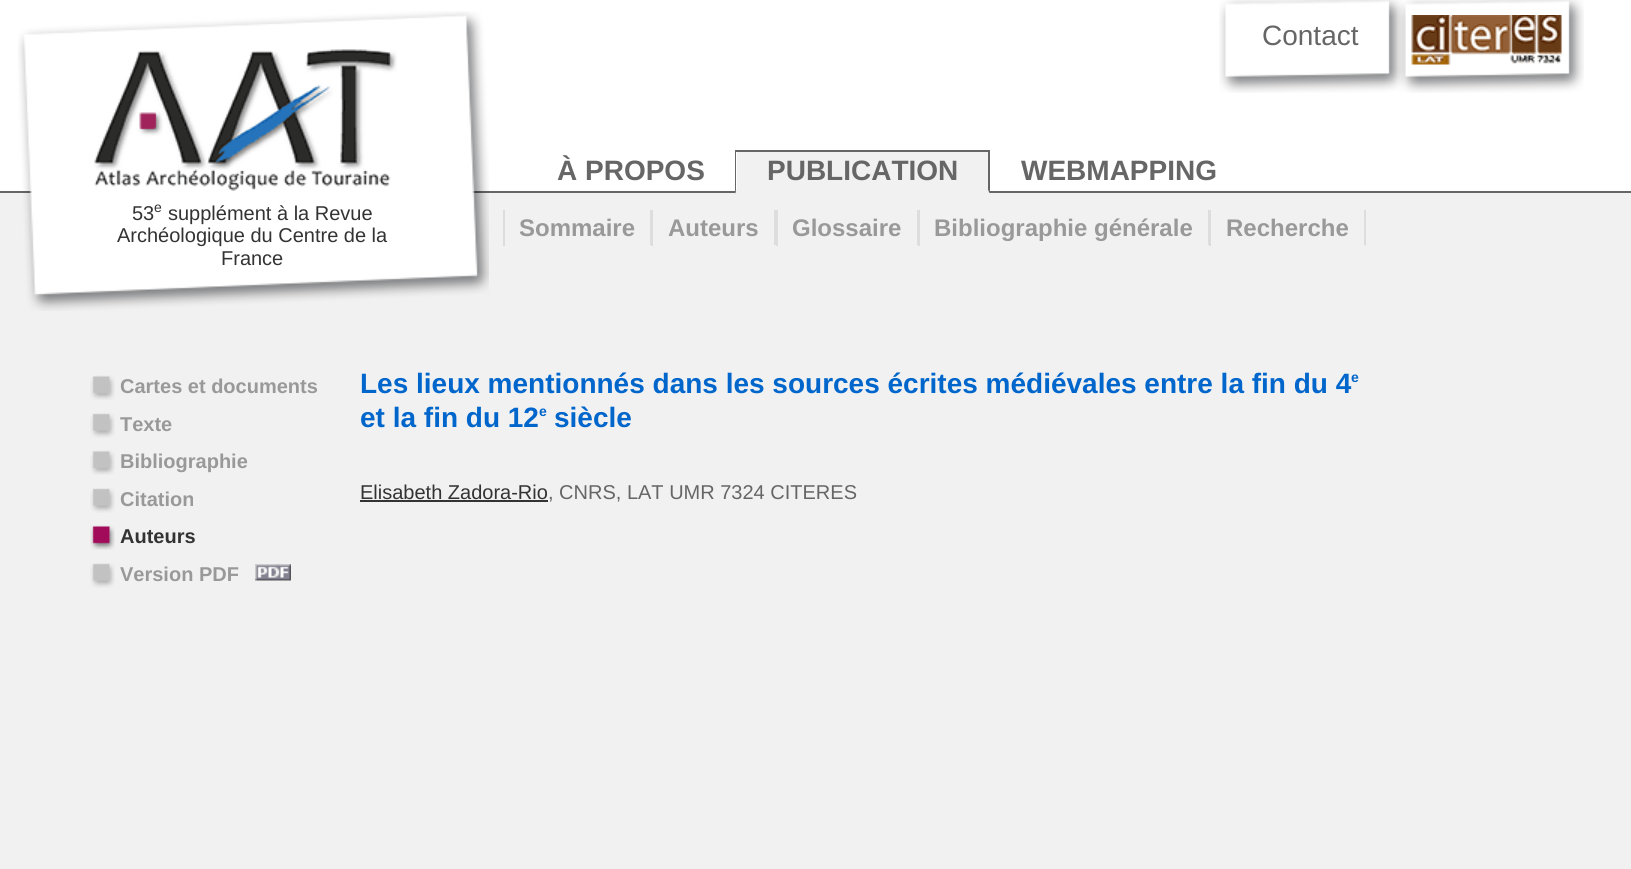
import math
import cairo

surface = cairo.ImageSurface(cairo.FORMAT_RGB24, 1631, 869)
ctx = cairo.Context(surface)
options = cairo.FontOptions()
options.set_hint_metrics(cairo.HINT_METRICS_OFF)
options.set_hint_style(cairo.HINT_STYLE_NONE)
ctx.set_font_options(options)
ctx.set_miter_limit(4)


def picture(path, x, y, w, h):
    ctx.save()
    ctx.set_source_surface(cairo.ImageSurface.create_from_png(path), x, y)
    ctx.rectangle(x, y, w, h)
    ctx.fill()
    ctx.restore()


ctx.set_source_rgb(0.945, 0.945, 0.945)
ctx.paint()
ctx.set_source_rgb(1, 1, 1)
ctx.rectangle(0, 0, 1631, 191)
ctx.fill()
picture("img1.png", 1219, 0, 185, 93)
ctx.select_font_face("Liberation Sans")
ctx.set_font_size(28)
ctx.set_source_rgb(0.4, 0.4, 0.4)
ctx.move_to(1262, 45)
ctx.show_text("Contact")
picture("img2.png", 1399, 0, 185, 93)
picture("img3.png", 1411, 15, 152, 50)
ctx.rectangle(0, 191, 1631, 2)
ctx.fill()
ctx.select_font_face("Liberation Sans", cairo.FONT_SLANT_NORMAL, cairo.FONT_WEIGHT_BOLD)
ctx.move_to(557, 180)
ctx.show_text("À PROPOS")
ctx.set_source_rgb(0.945, 0.945, 0.945)
ctx.rectangle(737, 152, 252, 39)
ctx.fill()
ctx.set_source_rgb(0.4, 0.4, 0.4)
ctx.rectangle(735, 150, 255, 2)
ctx.fill()
ctx.new_path()
ctx.move_to(990, 150)
ctx.line_to(990, 194)
ctx.line_to(988, 190)
ctx.line_to(988, 152)
ctx.close_path()
ctx.fill()
ctx.set_source_rgb(0.945, 0.945, 0.945)
ctx.new_path()
ctx.move_to(990, 194)
ctx.line_to(735, 194)
ctx.line_to(736, 190)
ctx.line_to(988, 190)
ctx.close_path()
ctx.fill()
ctx.set_source_rgb(0.4, 0.4, 0.4)
ctx.new_path()
ctx.move_to(735, 194)
ctx.line_to(735, 150)
ctx.line_to(736, 152)
ctx.line_to(736, 190)
ctx.close_path()
ctx.fill()
ctx.move_to(767, 180)
ctx.show_text("PUBLICATION")
ctx.move_to(1021, 180)
ctx.show_text("WEBMAPPING")
picture("img4.png", 18, 11, 471, 300)
picture("img5.png", 94, 49, 303, 142)
ctx.select_font_face("Liberation Sans")
ctx.set_font_size(20)
ctx.set_source_rgb(0.2, 0.2, 0.2)
ctx.move_to(132, 220)
ctx.show_text("53")
ctx.set_font_size(14)
ctx.move_to(154, 212)
ctx.show_text("e")
ctx.set_font_size(20)
ctx.move_to(168, 220)
ctx.show_text("supplément à la Revue")
ctx.move_to(117, 242)
ctx.show_text("Archéologique du Centre de la")
ctx.move_to(221, 265)
ctx.show_text("France")
ctx.set_source_rgb(0.867, 0.867, 0.867)
ctx.rectangle(650, 210, 3, 36)
ctx.fill()
ctx.set_source_rgb(0.945, 0.945, 0.945)
ctx.rectangle(650, 245, 1, 1)
ctx.fill()
ctx.set_source_rgb(0.867, 0.867, 0.867)
ctx.rectangle(503, 210, 2, 36)
ctx.fill()
ctx.select_font_face("Liberation Sans", cairo.FONT_SLANT_NORMAL, cairo.FONT_WEIGHT_BOLD)
ctx.set_font_size(24)
ctx.set_source_rgb(0.6, 0.6, 0.6)
ctx.move_to(519, 236)
ctx.show_text("Sommaire")
ctx.set_source_rgb(0.867, 0.867, 0.867)
ctx.rectangle(774, 210, 4, 36)
ctx.fill()
ctx.set_source_rgb(0.945, 0.945, 0.945)
ctx.rectangle(774, 245, 2, 1)
ctx.fill()
ctx.set_source_rgb(0.6, 0.6, 0.6)
ctx.move_to(668, 236)
ctx.show_text("Auteurs")
ctx.set_source_rgb(0.867, 0.867, 0.867)
ctx.rectangle(917, 210, 3, 36)
ctx.fill()
ctx.set_source_rgb(0.945, 0.945, 0.945)
ctx.rectangle(917, 245, 1, 1)
ctx.fill()
ctx.set_source_rgb(0.6, 0.6, 0.6)
ctx.move_to(792, 236)
ctx.show_text("Glossaire")
ctx.set_source_rgb(0.867, 0.867, 0.867)
ctx.rectangle(1208, 210, 3, 36)
ctx.fill()
ctx.set_source_rgb(0.945, 0.945, 0.945)
ctx.rectangle(1208, 245, 1, 1)
ctx.fill()
ctx.set_source_rgb(0.6, 0.6, 0.6)
ctx.move_to(934, 236)
ctx.show_text("Bibliographie générale")
ctx.set_source_rgb(0.867, 0.867, 0.867)
ctx.rectangle(1364, 210, 2, 36)
ctx.fill()
ctx.set_source_rgb(0.945, 0.945, 0.945)
ctx.rectangle(1364, 245, 1, 1)
ctx.fill()
ctx.set_source_rgb(0.6, 0.6, 0.6)
ctx.move_to(1226, 236)
ctx.show_text("Recherche")
picture("img6.png", 90, 375, 25, 25)
ctx.set_font_size(20)
ctx.move_to(120, 393)
ctx.show_text("Cartes et documents")
picture("img7.png", 90, 413, 25, 25)
ctx.move_to(120, 431)
ctx.show_text("Texte")
picture("img6.png", 90, 450, 25, 25)
ctx.move_to(120, 468)
ctx.show_text("Bibliographie")
picture("img7.png", 90, 488, 25, 25)
ctx.move_to(120, 506)
ctx.show_text("Citation")
picture("img8.png", 90, 525, 25, 25)
ctx.set_source_rgb(0.2, 0.2, 0.2)
ctx.move_to(120, 543)
ctx.show_text("Auteurs")
picture("img7.png", 90, 563, 25, 25)
ctx.set_source_rgb(0.6, 0.6, 0.6)
ctx.move_to(120, 581)
ctx.show_text("Version PDF")
picture("img9.png", 255, 564, 36, 17)
ctx.set_font_size(28)
ctx.set_source_rgb(0, 0.4, 0.8)
ctx.move_to(360, 393)
ctx.show_text("Les lieux mentionnés dans les sources écrites médiévales entre la fin du 4")
ctx.set_font_size(14)
ctx.move_to(1351, 382)
ctx.show_text("e")
ctx.set_font_size(28)
ctx.move_to(360, 427)
ctx.show_text("et la fin du 12")
ctx.set_font_size(14)
ctx.move_to(539, 416)
ctx.show_text("e")
ctx.set_font_size(28)
ctx.move_to(554, 427)
ctx.show_text("siècle")
ctx.select_font_face("Liberation Sans")
ctx.set_font_size(20)
ctx.set_source_rgb(0.2, 0.2, 0.2)
ctx.move_to(360, 499)
ctx.show_text("Elisabeth Zadora-Rio")
ctx.rectangle(360, 500, 188, 2)
ctx.fill()
ctx.set_source_rgb(0.4, 0.4, 0.4)
ctx.move_to(548, 499)
ctx.show_text(", CNRS, LAT UMR 7324 CITERES")
surface.write_to_png("page.png")
